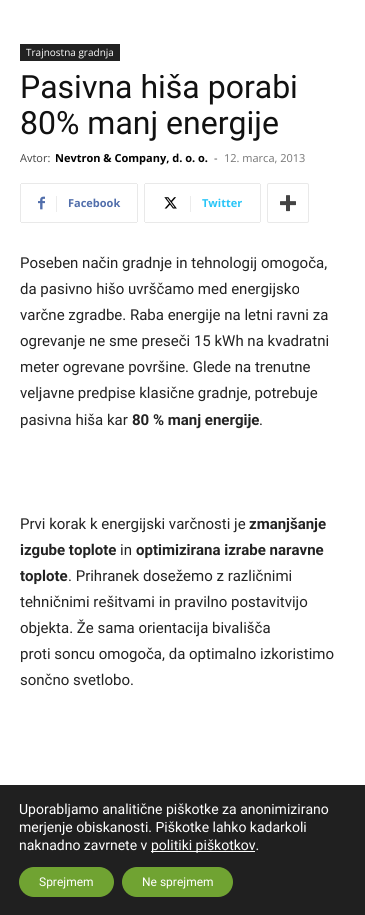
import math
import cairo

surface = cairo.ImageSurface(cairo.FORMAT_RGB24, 365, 915)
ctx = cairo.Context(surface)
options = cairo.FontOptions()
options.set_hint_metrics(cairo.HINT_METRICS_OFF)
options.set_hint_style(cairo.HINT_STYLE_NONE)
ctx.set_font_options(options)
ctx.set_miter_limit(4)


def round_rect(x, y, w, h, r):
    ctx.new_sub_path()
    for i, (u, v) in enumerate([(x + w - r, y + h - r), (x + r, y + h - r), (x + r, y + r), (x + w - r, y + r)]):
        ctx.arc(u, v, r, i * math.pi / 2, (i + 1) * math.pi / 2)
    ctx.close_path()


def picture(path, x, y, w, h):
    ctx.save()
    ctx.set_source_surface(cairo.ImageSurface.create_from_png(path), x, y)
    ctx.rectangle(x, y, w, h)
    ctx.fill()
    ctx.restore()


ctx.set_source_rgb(1, 1, 1)
ctx.paint()
ctx.set_source_rgb(0.133, 0.133, 0.133)
ctx.rectangle(20, 44, 100, 17)
ctx.fill()
ctx.select_font_face("Open Sans")
ctx.set_font_size(10)
ctx.set_source_rgb(1, 1, 1)
ctx.move_to(26, 56)
ctx.show_text("Trajnostna gradnja")
ctx.select_font_face("Roboto")
ctx.set_font_size(32)
ctx.set_source_rgb(0.067, 0.067, 0.067)
ctx.move_to(20, 98)
ctx.show_text("Pasivna hiša porabi")
ctx.move_to(20, 134)
ctx.show_text("80% manj energije")
ctx.select_font_face("Open Sans")
ctx.set_font_size(11)
ctx.set_source_rgb(0.267, 0.267, 0.267)
ctx.move_to(20, 162)
ctx.show_text("Avtor:")
ctx.select_font_face("Open Sans", cairo.FONT_SLANT_NORMAL, cairo.FONT_WEIGHT_BOLD)
ctx.set_source_rgb(0, 0, 0)
ctx.move_to(55, 162)
ctx.show_text("Nevtron & Company, d. o. o.")
ctx.select_font_face("Open Sans")
ctx.set_source_rgb(0.267, 0.267, 0.267)
ctx.move_to(214, 162)
ctx.show_text("-")
ctx.set_source_rgb(0.463, 0.463, 0.463)
ctx.move_to(224, 162)
ctx.show_text("12. marca, 2013")
ctx.set_source_rgb(0.914, 0.914, 0.914)
ctx.rectangle(20, 184, 1, 38)
ctx.fill()
picture("img1.png", 38, 196, 7, 14)
ctx.rectangle(21, 183, 116, 1)
ctx.fill()
ctx.rectangle(137, 184, 1, 38)
ctx.fill()
ctx.rectangle(21, 222, 116, 1)
ctx.fill()
ctx.set_source_rgb(0.922, 0.922, 0.922)
ctx.rectangle(56, 196, 1, 16)
ctx.fill()
ctx.select_font_face("Open Sans", cairo.FONT_SLANT_NORMAL, cairo.FONT_WEIGHT_BOLD)
ctx.set_source_rgb(0.318, 0.431, 0.671)
ctx.move_to(68, 207)
ctx.show_text("Facebook")
ctx.set_source_rgb(0.914, 0.914, 0.914)
ctx.rectangle(144, 184, 1, 38)
ctx.fill()
picture("img2.png", 164, 197, 13, 12)
ctx.rectangle(145, 183, 115, 1)
ctx.fill()
ctx.rectangle(260, 184, 1, 38)
ctx.fill()
ctx.rectangle(145, 222, 115, 1)
ctx.fill()
ctx.set_source_rgb(0.922, 0.922, 0.922)
ctx.rectangle(190, 196, 1, 16)
ctx.fill()
ctx.set_source_rgb(0.161, 0.773, 0.965)
ctx.move_to(202, 207)
ctx.show_text("Twitter")
round_rect(267.5, 183.5, 41, 39, 1.5)
ctx.set_source_rgb(0.914, 0.914, 0.914)
ctx.set_line_width(1)
ctx.stroke()
picture("img3.png", 280, 195, 16, 17)
ctx.select_font_face("Roboto")
ctx.set_font_size(15)
ctx.set_source_rgb(0.133, 0.133, 0.133)
ctx.move_to(20, 268)
ctx.show_text("Poseben način gradnje in tehnologij omogoča,")
ctx.move_to(20, 294)
ctx.show_text("da pasivno hišo uvrščamo med energijsko")
ctx.move_to(20, 320)
ctx.show_text("varčne zgradbe. Raba energije na letni ravni za")
ctx.move_to(20, 346)
ctx.show_text("ogrevanje ne sme preseči 15 kWh na kvadratni")
ctx.move_to(20, 372)
ctx.show_text("meter ogrevane površine. Glede na trenutne")
ctx.move_to(20, 398)
ctx.show_text("veljavne predpise klasične gradnje, potrebuje")
ctx.move_to(20, 425)
ctx.show_text("pasivna hiša kar")
ctx.select_font_face("Roboto", cairo.FONT_SLANT_NORMAL, cairo.FONT_WEIGHT_BOLD)
ctx.move_to(132, 425)
ctx.show_text("80 % manj energije")
ctx.select_font_face("Roboto")
ctx.move_to(259, 425)
ctx.show_text(".")
ctx.move_to(20, 529)
ctx.show_text("Prvi korak k energijski varčnosti je")
ctx.select_font_face("Roboto", cairo.FONT_SLANT_NORMAL, cairo.FONT_WEIGHT_BOLD)
ctx.move_to(249, 529)
ctx.show_text("zmanjšanje")
ctx.move_to(20, 555)
ctx.show_text("izgube toplote")
ctx.select_font_face("Roboto")
ctx.move_to(120, 555)
ctx.show_text("in")
ctx.select_font_face("Roboto", cairo.FONT_SLANT_NORMAL, cairo.FONT_WEIGHT_BOLD)
ctx.move_to(136, 555)
ctx.show_text("optimizirana izrabe naravne")
ctx.move_to(20, 581)
ctx.show_text("toplote")
ctx.select_font_face("Roboto")
ctx.move_to(68, 581)
ctx.show_text(". Prihranek dosežemo z različnimi")
ctx.move_to(20, 607)
ctx.show_text("tehničnimi rešitvami in pravilno postavitvijo")
ctx.move_to(20, 633)
ctx.show_text("objekta. Že sama orientacija bivališča")
ctx.move_to(20, 659)
ctx.show_text("proti soncu omogoča, da optimalno izkoristimo")
ctx.move_to(20, 685)
ctx.show_text("sončno svetlobo.")
ctx.set_source_rgb(0.125, 0.125, 0.125)
ctx.rectangle(0, 785, 365, 130)
ctx.fill()
ctx.set_font_size(14)
ctx.set_source_rgb(1, 1, 1)
ctx.move_to(19, 814)
ctx.show_text("Uporabljamo analitične piškotke za anonimizirano")
ctx.move_to(19, 832)
ctx.show_text("merjenje obiskanosti. Piškotke lahko kadarkoli")
ctx.move_to(19, 850)
ctx.show_text("naknadno zavrnete v")
ctx.rectangle(151, 851, 104, 1)
ctx.fill()
ctx.move_to(151, 850)
ctx.show_text("politiki piškotkov.")
ctx.set_source_rgb(0.439, 0.639, 0.196)
round_rect(19, 867, 95, 30, 15)
ctx.fill()
ctx.set_font_size(12)
ctx.set_source_rgb(1, 1, 1)
ctx.move_to(39, 886)
ctx.show_text("Sprejmem")
ctx.set_source_rgb(0.439, 0.639, 0.196)
round_rect(122, 867, 111, 30, 15)
ctx.fill()
ctx.set_source_rgb(1, 1, 1)
ctx.move_to(142, 886)
ctx.show_text("Ne sprejmem")
surface.write_to_png("page.png")
